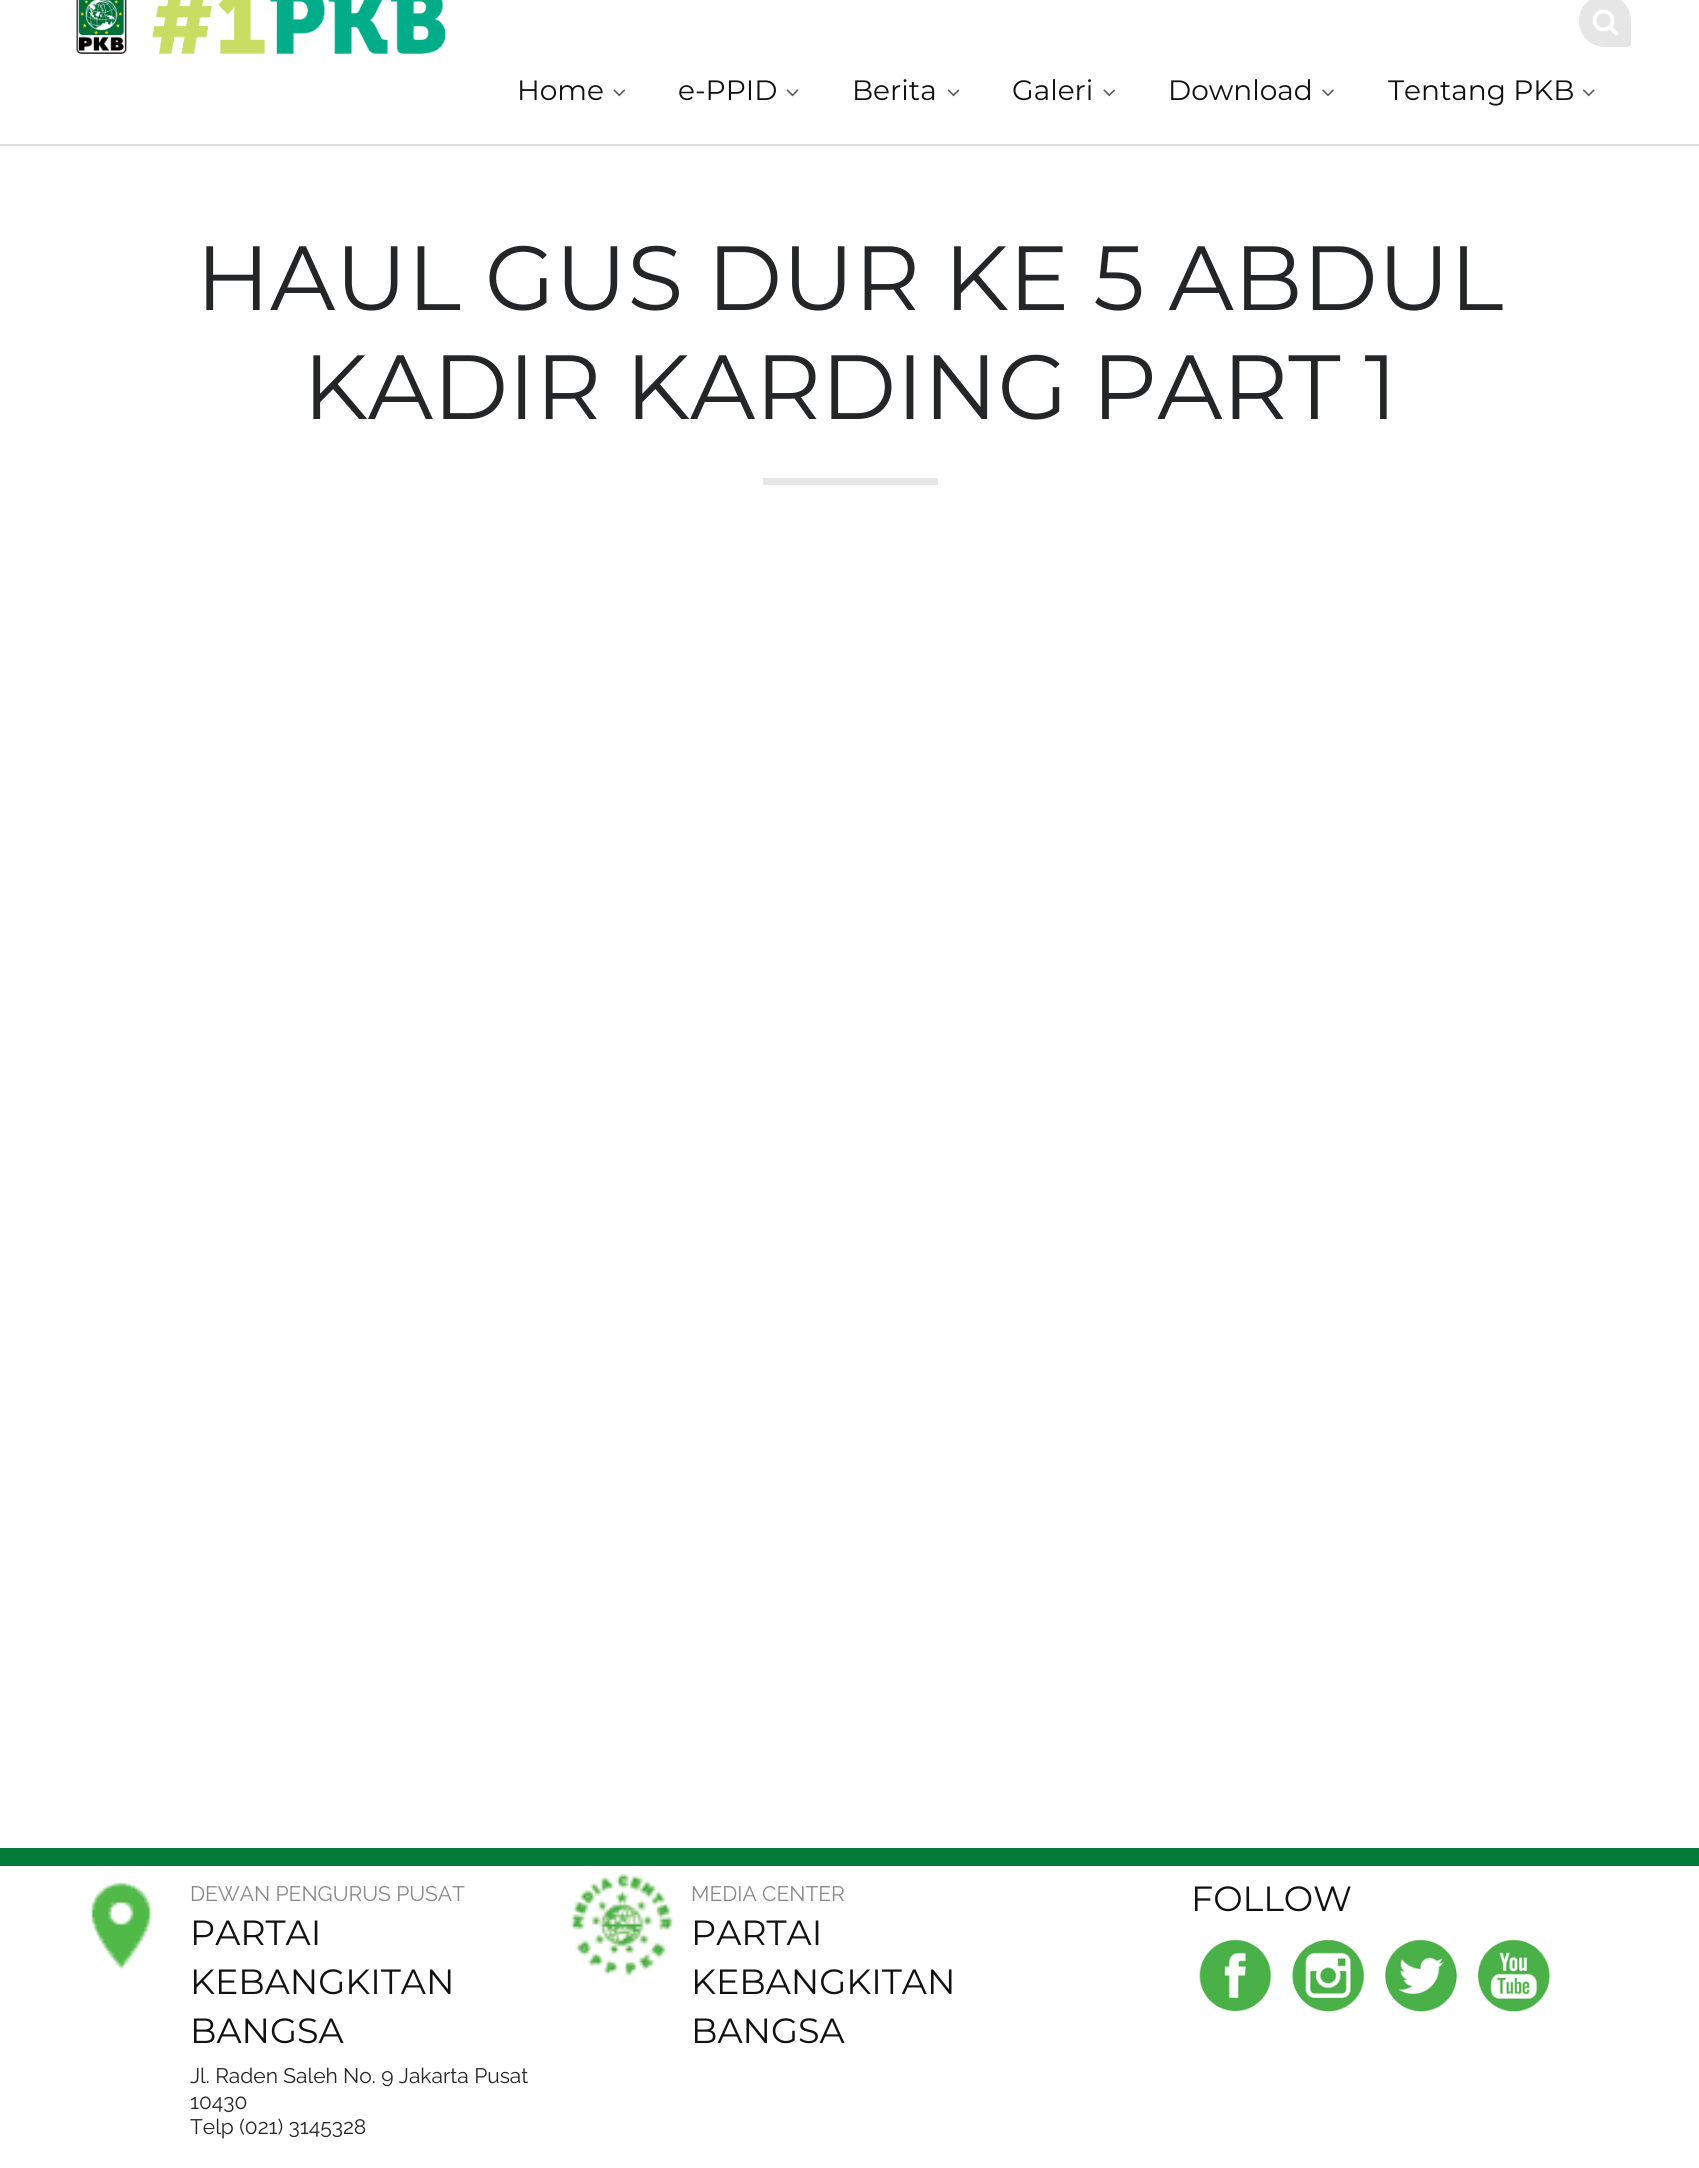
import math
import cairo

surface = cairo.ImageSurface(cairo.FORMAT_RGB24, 1699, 2168)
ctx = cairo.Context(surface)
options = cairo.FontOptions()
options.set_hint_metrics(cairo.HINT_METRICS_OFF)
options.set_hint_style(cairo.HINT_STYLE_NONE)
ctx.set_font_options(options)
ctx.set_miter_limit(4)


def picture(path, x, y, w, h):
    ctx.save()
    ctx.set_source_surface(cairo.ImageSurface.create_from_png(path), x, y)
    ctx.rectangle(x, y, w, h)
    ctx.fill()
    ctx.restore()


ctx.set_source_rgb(1, 1, 1)
ctx.paint()
picture("img1.png", 76, 0, 370, 54)
ctx.set_source_rgb(0.902, 0.902, 0.902)
ctx.new_path()
ctx.move_to(1605, -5)
ctx.curve_to(1619.5, -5, 1631, 6.5, 1631, 21)
ctx.line_to(1631, 44.5)
ctx.curve_to(1631, 46, 1630, 47, 1628.5, 47)
ctx.line_to(1605, 47)
ctx.curve_to(1590.5, 47, 1579, 35.5, 1579, 21)
ctx.curve_to(1579, 6.5, 1590.5, -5, 1605, -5)
ctx.close_path()
ctx.fill()
picture("img2.png", 1592, 9, 27, 27)
ctx.select_font_face("Montserrat")
ctx.set_font_size(28)
ctx.set_source_rgb(0.067, 0.067, 0.067)
ctx.move_to(517, 100)
ctx.show_text("Home")
picture("img3.png", 613, 89, 12, 8)
ctx.move_to(678, 100)
ctx.show_text("e-PPID")
picture("img4.png", 786, 89, 13, 8)
ctx.move_to(852, 100)
ctx.show_text("Berita")
picture("img4.png", 947, 89, 13, 8)
ctx.move_to(1012, 100)
ctx.show_text("Galeri")
picture("img3.png", 1103, 89, 12, 8)
ctx.move_to(1168, 100)
ctx.show_text("Download")
picture("img5.png", 1322, 89, 12, 8)
ctx.move_to(1388, 100)
ctx.show_text("Tentang PKB")
picture("img6.png", 1583, 89, 12, 8)
ctx.set_source_rgb(0.871, 0.871, 0.871)
ctx.rectangle(0, 144, 1699, 2)
ctx.fill()
ctx.set_font_size(91)
ctx.set_source_rgb(0.137, 0.145, 0.153)
ctx.move_to(196, 310)
ctx.show_text("HAUL GUS DUR KE 5 ABDUL")
ctx.move_to(303, 419)
ctx.show_text("KADIR KARDING PART 1")
ctx.set_source_rgb(0.906, 0.906, 0.906)
ctx.rectangle(763, 478, 175, 7)
ctx.fill()
ctx.set_source_rgb(0, 0.482, 0.224)
ctx.rectangle(0, 1848, 1699, 18)
ctx.fill()
picture("img7.png", 90, 1882, 63, 87)
ctx.select_font_face("Raleway")
ctx.set_font_size(21)
ctx.set_source_rgb(0.533, 0.533, 0.533)
ctx.move_to(190, 1901)
ctx.show_text("DEWAN PENGURUS PUSAT")
ctx.select_font_face("Montserrat")
ctx.set_font_size(35)
ctx.set_source_rgb(0.067, 0.067, 0.067)
ctx.move_to(190, 1945)
ctx.show_text("PARTAI")
ctx.move_to(190, 1994)
ctx.show_text("KEBANGKITAN")
ctx.move_to(190, 2043)
ctx.show_text("BANGSA")
ctx.select_font_face("Raleway")
ctx.set_font_size(21)
ctx.set_source_rgb(0.137, 0.145, 0.153)
ctx.move_to(190, 2083)
ctx.show_text("Jl. Raden Saleh No. 9 Jakarta Pusat")
ctx.move_to(190, 2109)
ctx.show_text("10430")
ctx.move_to(190, 2134)
ctx.show_text("Telp (021) 3145328")
picture("img8.png", 570, 1874, 104, 103)
ctx.set_source_rgb(0.533, 0.533, 0.533)
ctx.move_to(691, 1901)
ctx.show_text("MEDIA CENTER")
ctx.select_font_face("Montserrat")
ctx.set_font_size(35)
ctx.set_source_rgb(0.067, 0.067, 0.067)
ctx.move_to(691, 1945)
ctx.show_text("PARTAI")
ctx.move_to(691, 1994)
ctx.show_text("KEBANGKITAN")
ctx.move_to(691, 2043)
ctx.show_text("BANGSA")
ctx.move_to(1191, 1911)
ctx.show_text("FOLLOW")
picture("img9.png", 1199, 1939, 73, 73)
picture("img10.png", 1292, 1939, 73, 73)
picture("img11.png", 1385, 1939, 72, 73)
picture("img12.png", 1477, 1939, 73, 73)
surface.write_to_png("page.png")
